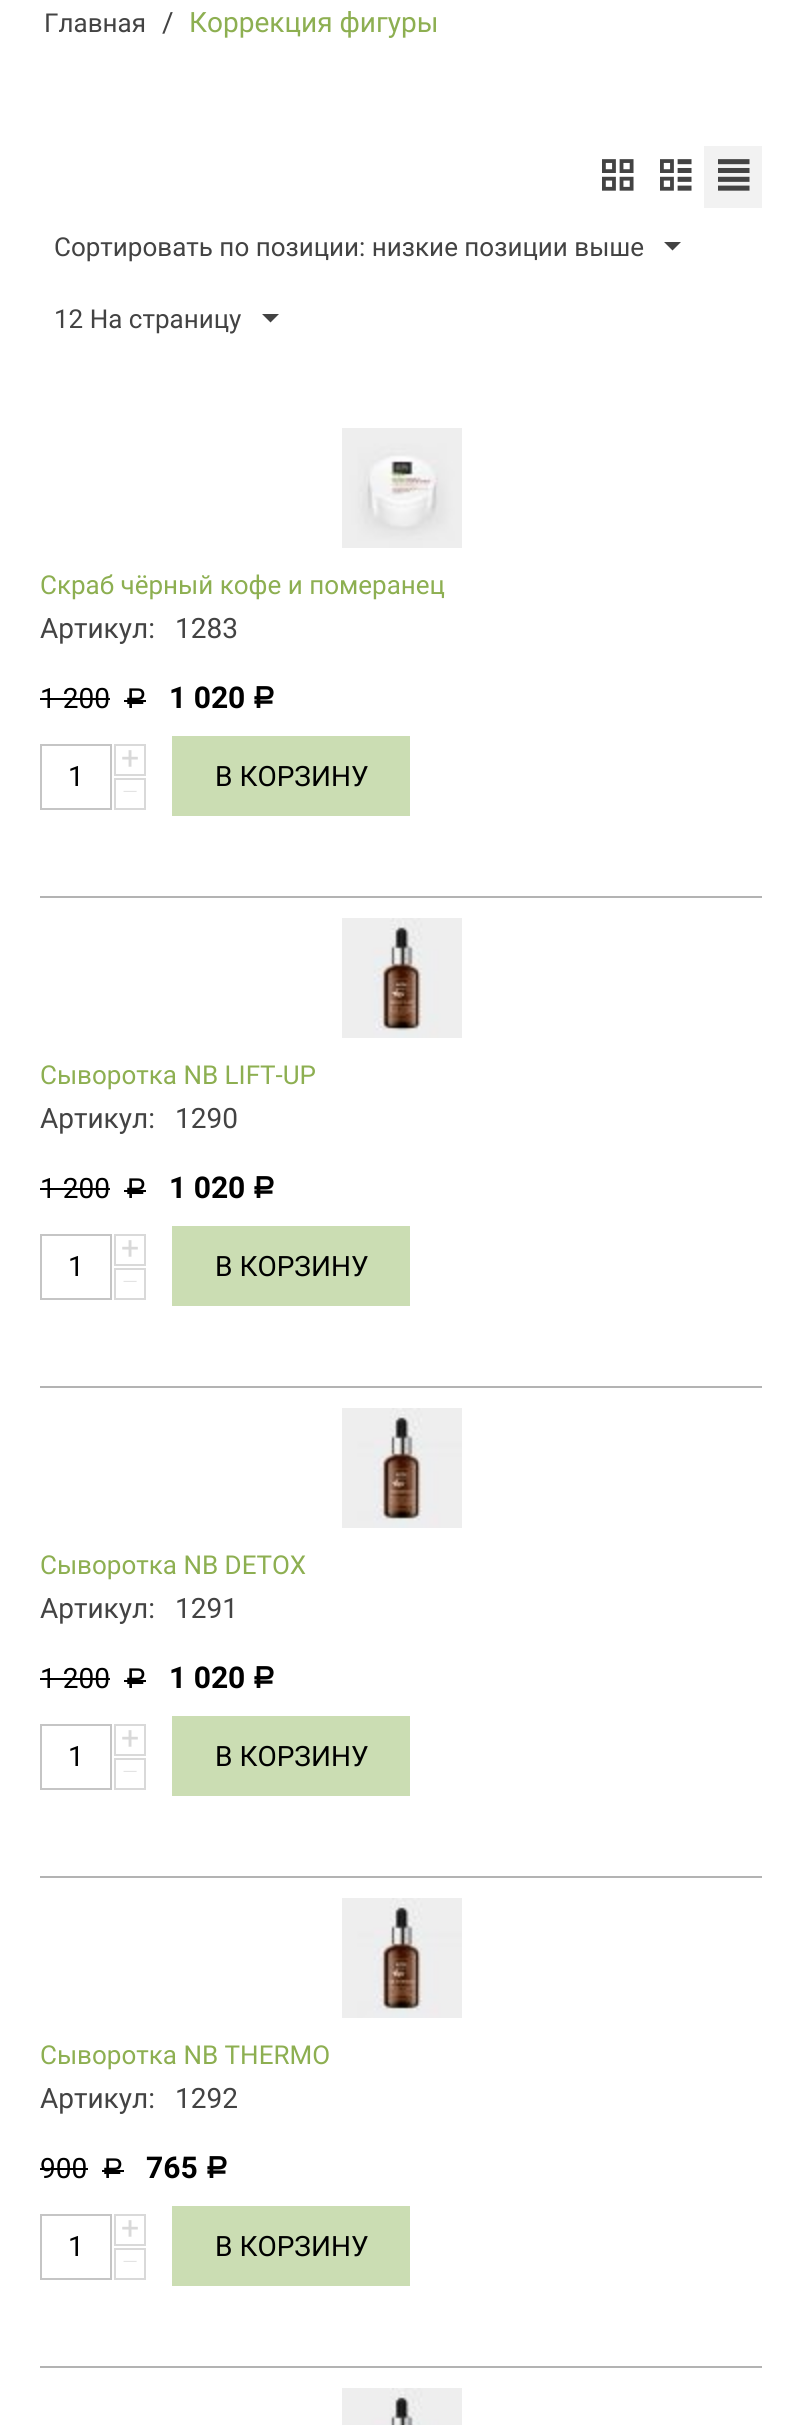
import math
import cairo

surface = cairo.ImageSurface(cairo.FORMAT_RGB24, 802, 2425)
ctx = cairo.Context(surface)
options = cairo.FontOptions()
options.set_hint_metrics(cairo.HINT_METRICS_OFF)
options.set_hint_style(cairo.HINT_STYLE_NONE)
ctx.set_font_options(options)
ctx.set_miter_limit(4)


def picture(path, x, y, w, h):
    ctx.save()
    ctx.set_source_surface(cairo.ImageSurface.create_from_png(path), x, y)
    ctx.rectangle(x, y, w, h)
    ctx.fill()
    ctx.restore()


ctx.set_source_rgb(1, 1, 1)
ctx.paint()
ctx.select_font_face("Roboto")
ctx.set_font_size(26)
ctx.set_source_rgb(0.263, 0.263, 0.263)
ctx.move_to(44, 32)
ctx.show_text("Главная")
ctx.set_font_size(28)
ctx.move_to(162, 32)
ctx.show_text("/")
ctx.set_source_rgb(0.553, 0.686, 0.318)
ctx.move_to(189, 32)
ctx.show_text("Коррекция фигуры")
picture("img1.png", 602, 159, 32, 32)
picture("img2.png", 660, 159, 32, 32)
ctx.set_source_rgb(0.949, 0.949, 0.949)
ctx.rectangle(704, 146, 58, 62)
ctx.fill()
picture("img3.png", 718, 159, 32, 32)
ctx.set_font_size(26)
ctx.set_source_rgb(0.263, 0.263, 0.263)
ctx.move_to(54, 256)
ctx.show_text("Сортировать по позиции: низкие позиции выше")
ctx.new_path()
ctx.move_to(672.5, 250.5)
ctx.line_to(664, 242)
ctx.line_to(681, 242)
ctx.close_path()
ctx.fill()
ctx.move_to(54, 328)
ctx.show_text("12 На страницу")
ctx.new_path()
ctx.move_to(270.5, 322.5)
ctx.line_to(262, 314)
ctx.line_to(279, 314)
ctx.close_path()
ctx.fill()
ctx.set_source_rgb(0.702, 0.702, 0.702)
ctx.rectangle(40, 896, 722, 2)
ctx.fill()
picture("img4.png", 342, 428, 120, 120)
ctx.set_source_rgb(0.553, 0.686, 0.318)
ctx.move_to(40, 594)
ctx.show_text("Скраб чёрный кофе и померанец")
ctx.set_font_size(28)
ctx.set_source_rgb(0.263, 0.263, 0.263)
ctx.move_to(40, 638)
ctx.show_text("Артикул:")
ctx.move_to(175, 638)
ctx.show_text("1283")
ctx.set_source_rgb(0, 0, 0)
ctx.move_to(40, 708)
ctx.show_text("1 200")
ctx.rectangle(40, 698, 70, 2)
ctx.fill()
ctx.select_font_face("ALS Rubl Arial")
ctx.move_to(125, 708)
ctx.show_text("Р")
ctx.rectangle(124, 700, 22, 2)
ctx.fill()
ctx.select_font_face("Roboto", cairo.FONT_SLANT_NORMAL, cairo.FONT_WEIGHT_BOLD)
ctx.set_font_size(30)
ctx.move_to(169, 708)
ctx.show_text("1 020")
ctx.select_font_face("ALS Rubl Arial", cairo.FONT_SLANT_NORMAL, cairo.FONT_WEIGHT_BOLD)
ctx.move_to(252, 708)
ctx.show_text("Р")
ctx.rectangle(115, 745, 30, 30)
ctx.set_source_rgb(0.851, 0.851, 0.851)
ctx.stroke()
ctx.select_font_face("Roboto")
ctx.set_font_size(32)
ctx.move_to(121, 769)
ctx.show_text("+")
ctx.rectangle(41, 745, 70, 64)
ctx.set_source_rgb(0.773, 0.773, 0.773)
ctx.stroke()
ctx.set_font_size(28)
ctx.set_source_rgb(0, 0, 0)
ctx.move_to(68, 786)
ctx.show_text("1")
ctx.rectangle(115, 779, 30, 30)
ctx.set_source_rgb(0.851, 0.851, 0.851)
ctx.stroke()
ctx.select_font_face("Roboto Thin")
ctx.set_font_size(32)
ctx.move_to(121, 803)
ctx.show_text("−")
ctx.set_source_rgb(0.796, 0.867, 0.702)
ctx.rectangle(172, 736, 238, 80)
ctx.fill()
ctx.select_font_face("Roboto")
ctx.set_font_size(28)
ctx.set_source_rgb(0, 0, 0)
ctx.move_to(215, 786)
ctx.show_text("В КОРЗИНУ")
ctx.set_source_rgb(0.702, 0.702, 0.702)
ctx.rectangle(40, 1386, 722, 2)
ctx.fill()
picture("img5.png", 342, 918, 120, 120)
ctx.set_font_size(26)
ctx.set_source_rgb(0.553, 0.686, 0.318)
ctx.move_to(40, 1084)
ctx.show_text("Сыворотка NB LIFT-UP")
ctx.set_font_size(28)
ctx.set_source_rgb(0.263, 0.263, 0.263)
ctx.move_to(40, 1128)
ctx.show_text("Артикул:")
ctx.move_to(175, 1128)
ctx.show_text("1290")
ctx.set_source_rgb(0, 0, 0)
ctx.move_to(40, 1198)
ctx.show_text("1 200")
ctx.rectangle(40, 1188, 70, 2)
ctx.fill()
ctx.select_font_face("ALS Rubl Arial")
ctx.move_to(125, 1198)
ctx.show_text("Р")
ctx.rectangle(124, 1190, 22, 2)
ctx.fill()
ctx.select_font_face("Roboto", cairo.FONT_SLANT_NORMAL, cairo.FONT_WEIGHT_BOLD)
ctx.set_font_size(30)
ctx.move_to(169, 1198)
ctx.show_text("1 020")
ctx.select_font_face("ALS Rubl Arial", cairo.FONT_SLANT_NORMAL, cairo.FONT_WEIGHT_BOLD)
ctx.move_to(252, 1198)
ctx.show_text("Р")
ctx.rectangle(115, 1235, 30, 30)
ctx.set_source_rgb(0.851, 0.851, 0.851)
ctx.stroke()
ctx.select_font_face("Roboto")
ctx.set_font_size(32)
ctx.move_to(121, 1259)
ctx.show_text("+")
ctx.rectangle(41, 1235, 70, 64)
ctx.set_source_rgb(0.773, 0.773, 0.773)
ctx.stroke()
ctx.set_font_size(28)
ctx.set_source_rgb(0, 0, 0)
ctx.move_to(68, 1276)
ctx.show_text("1")
ctx.rectangle(115, 1269, 30, 30)
ctx.set_source_rgb(0.851, 0.851, 0.851)
ctx.stroke()
ctx.select_font_face("Roboto Thin")
ctx.set_font_size(32)
ctx.move_to(121, 1293)
ctx.show_text("−")
ctx.set_source_rgb(0.796, 0.867, 0.702)
ctx.rectangle(172, 1226, 238, 80)
ctx.fill()
ctx.select_font_face("Roboto")
ctx.set_font_size(28)
ctx.set_source_rgb(0, 0, 0)
ctx.move_to(215, 1276)
ctx.show_text("В КОРЗИНУ")
ctx.set_source_rgb(0.702, 0.702, 0.702)
ctx.rectangle(40, 1876, 722, 2)
ctx.fill()
picture("img6.png", 342, 1408, 120, 120)
ctx.set_font_size(26)
ctx.set_source_rgb(0.553, 0.686, 0.318)
ctx.move_to(40, 1574)
ctx.show_text("Сыворотка NB DETOX")
ctx.set_font_size(28)
ctx.set_source_rgb(0.263, 0.263, 0.263)
ctx.move_to(40, 1618)
ctx.show_text("Артикул:")
ctx.move_to(175, 1618)
ctx.show_text("1291")
ctx.set_source_rgb(0, 0, 0)
ctx.move_to(40, 1688)
ctx.show_text("1 200")
ctx.rectangle(40, 1678, 70, 2)
ctx.fill()
ctx.select_font_face("ALS Rubl Arial")
ctx.move_to(125, 1688)
ctx.show_text("Р")
ctx.rectangle(124, 1680, 22, 2)
ctx.fill()
ctx.select_font_face("Roboto", cairo.FONT_SLANT_NORMAL, cairo.FONT_WEIGHT_BOLD)
ctx.set_font_size(30)
ctx.move_to(169, 1688)
ctx.show_text("1 020")
ctx.select_font_face("ALS Rubl Arial", cairo.FONT_SLANT_NORMAL, cairo.FONT_WEIGHT_BOLD)
ctx.move_to(252, 1688)
ctx.show_text("Р")
ctx.rectangle(115, 1725, 30, 30)
ctx.set_source_rgb(0.851, 0.851, 0.851)
ctx.stroke()
ctx.select_font_face("Roboto")
ctx.set_font_size(32)
ctx.move_to(121, 1749)
ctx.show_text("+")
ctx.rectangle(41, 1725, 70, 64)
ctx.set_source_rgb(0.773, 0.773, 0.773)
ctx.stroke()
ctx.set_font_size(28)
ctx.set_source_rgb(0, 0, 0)
ctx.move_to(68, 1766)
ctx.show_text("1")
ctx.rectangle(115, 1759, 30, 30)
ctx.set_source_rgb(0.851, 0.851, 0.851)
ctx.stroke()
ctx.select_font_face("Roboto Thin")
ctx.set_font_size(32)
ctx.move_to(121, 1783)
ctx.show_text("−")
ctx.set_source_rgb(0.796, 0.867, 0.702)
ctx.rectangle(172, 1716, 238, 80)
ctx.fill()
ctx.select_font_face("Roboto")
ctx.set_font_size(28)
ctx.set_source_rgb(0, 0, 0)
ctx.move_to(215, 1766)
ctx.show_text("В КОРЗИНУ")
ctx.set_source_rgb(0.702, 0.702, 0.702)
ctx.rectangle(40, 2366, 722, 2)
ctx.fill()
picture("img7.png", 342, 1898, 120, 120)
ctx.set_font_size(26)
ctx.set_source_rgb(0.553, 0.686, 0.318)
ctx.move_to(40, 2064)
ctx.show_text("Сыворотка NB THERMO")
ctx.set_font_size(28)
ctx.set_source_rgb(0.263, 0.263, 0.263)
ctx.move_to(40, 2108)
ctx.show_text("Артикул:")
ctx.move_to(175, 2108)
ctx.show_text("1292")
ctx.set_source_rgb(0, 0, 0)
ctx.move_to(40, 2178)
ctx.show_text("900")
ctx.rectangle(40, 2168, 48, 2)
ctx.fill()
ctx.select_font_face("ALS Rubl Arial")
ctx.move_to(102, 2178)
ctx.show_text("Р")
ctx.rectangle(102, 2170, 22, 2)
ctx.fill()
ctx.select_font_face("Roboto", cairo.FONT_SLANT_NORMAL, cairo.FONT_WEIGHT_BOLD)
ctx.set_font_size(30)
ctx.move_to(146, 2178)
ctx.show_text("765")
ctx.select_font_face("ALS Rubl Arial", cairo.FONT_SLANT_NORMAL, cairo.FONT_WEIGHT_BOLD)
ctx.move_to(205, 2178)
ctx.show_text("Р")
ctx.rectangle(115, 2215, 30, 30)
ctx.set_source_rgb(0.851, 0.851, 0.851)
ctx.stroke()
ctx.select_font_face("Roboto")
ctx.set_font_size(32)
ctx.move_to(121, 2239)
ctx.show_text("+")
ctx.rectangle(41, 2215, 70, 64)
ctx.set_source_rgb(0.773, 0.773, 0.773)
ctx.stroke()
ctx.set_font_size(28)
ctx.set_source_rgb(0, 0, 0)
ctx.move_to(68, 2256)
ctx.show_text("1")
ctx.rectangle(115, 2249, 30, 30)
ctx.set_source_rgb(0.851, 0.851, 0.851)
ctx.stroke()
ctx.select_font_face("Roboto Thin")
ctx.set_font_size(32)
ctx.move_to(121, 2273)
ctx.show_text("−")
ctx.set_source_rgb(0.796, 0.867, 0.702)
ctx.rectangle(172, 2206, 238, 80)
ctx.fill()
ctx.select_font_face("Roboto")
ctx.set_font_size(28)
ctx.set_source_rgb(0, 0, 0)
ctx.move_to(215, 2256)
ctx.show_text("В КОРЗИНУ")
picture("img8.png", 342, 2388, 120, 37)
surface.write_to_png("page.png")
